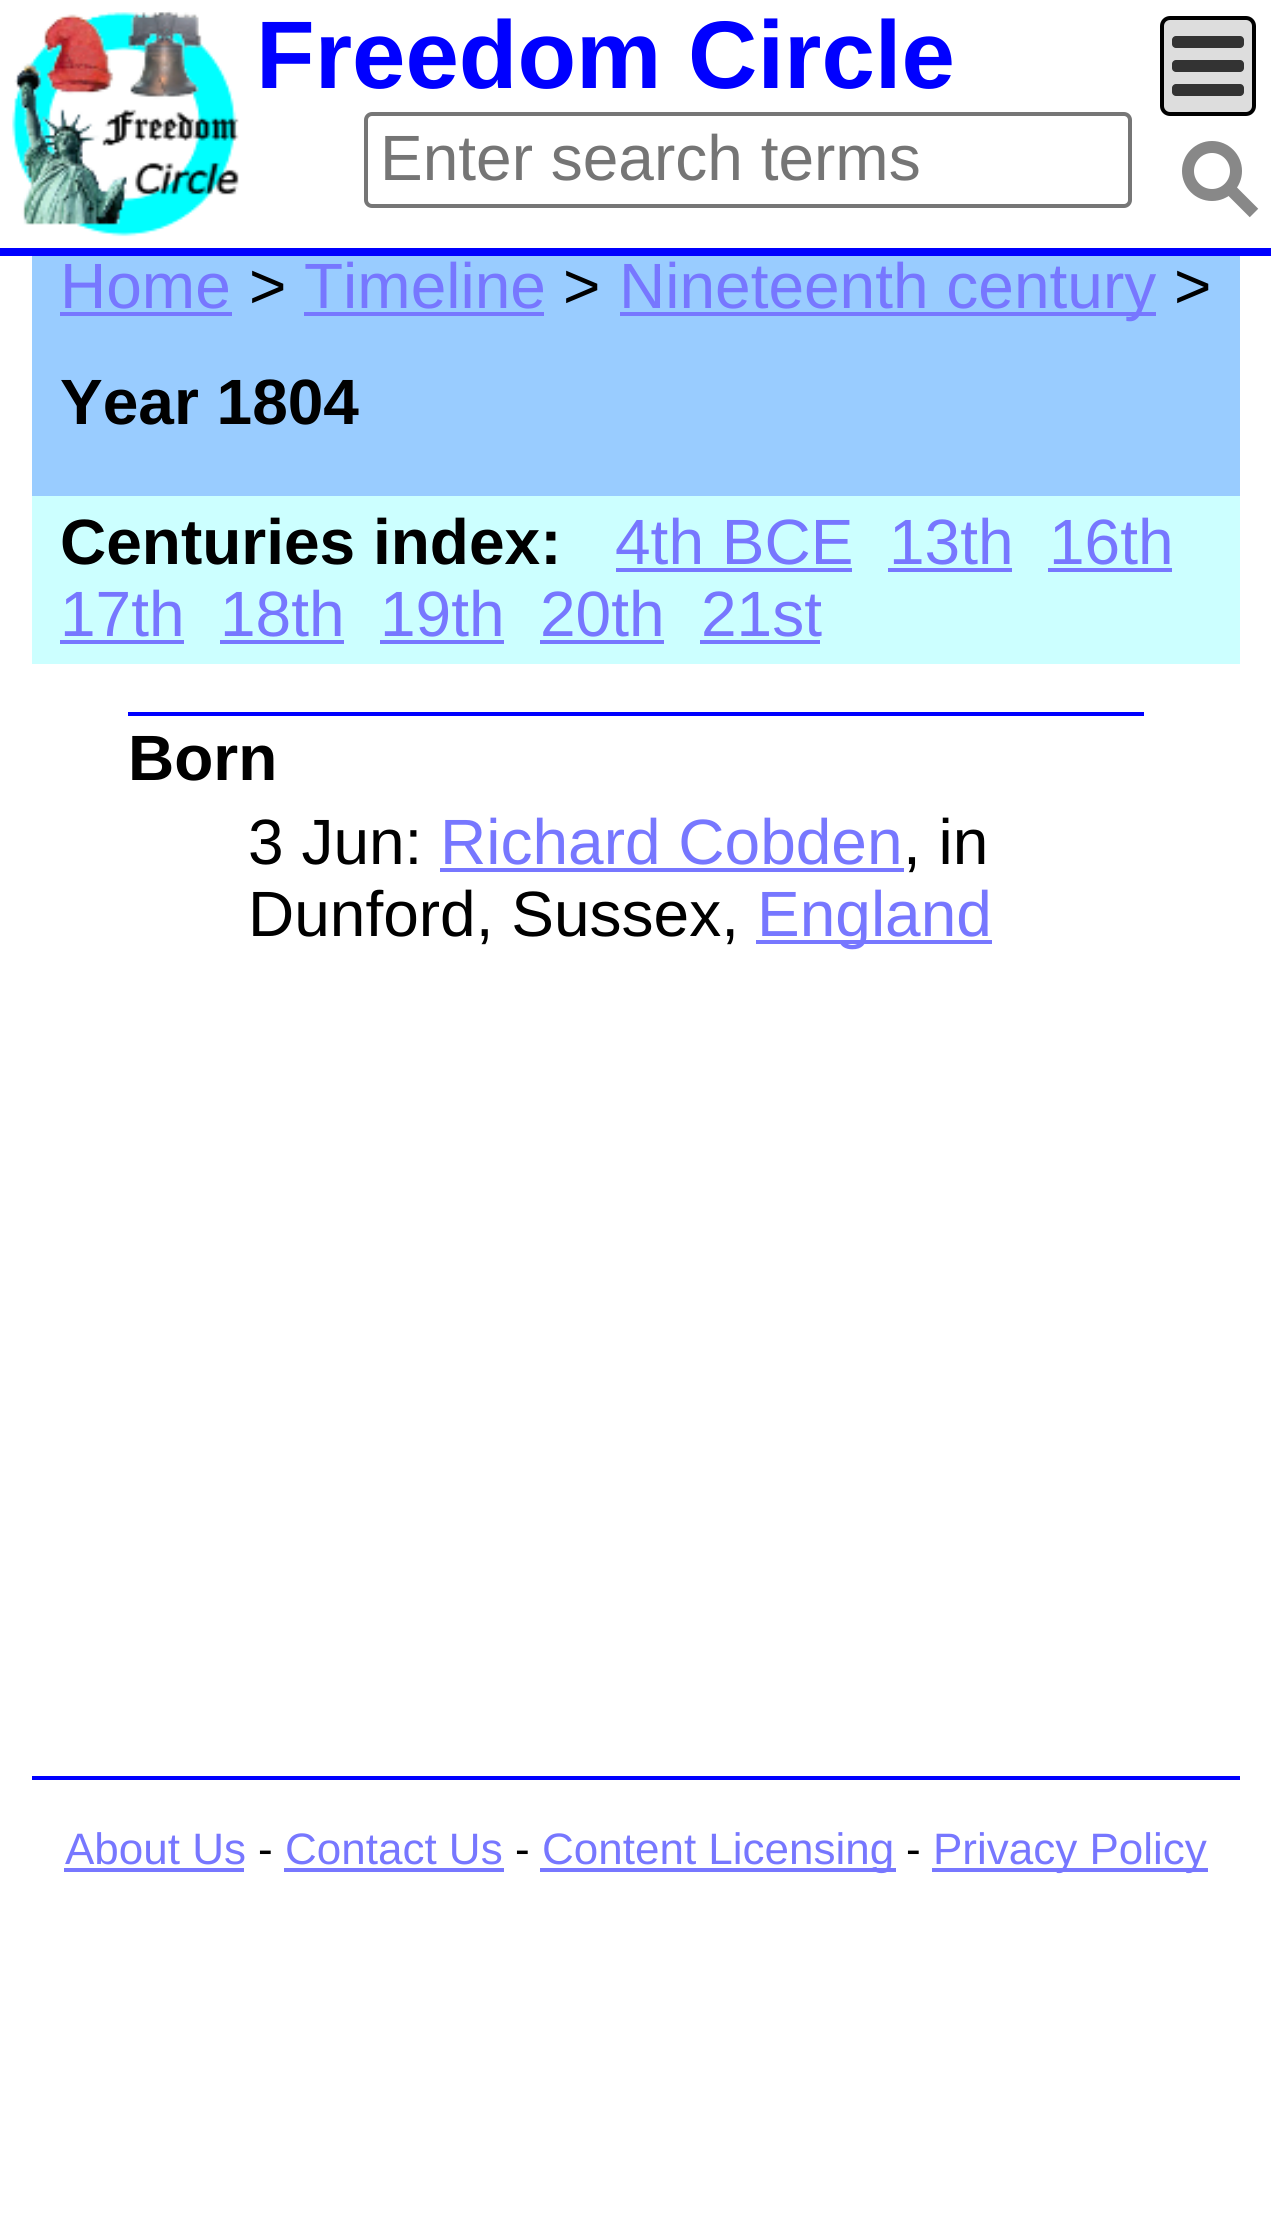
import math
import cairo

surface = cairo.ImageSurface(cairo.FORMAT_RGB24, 1271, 2223)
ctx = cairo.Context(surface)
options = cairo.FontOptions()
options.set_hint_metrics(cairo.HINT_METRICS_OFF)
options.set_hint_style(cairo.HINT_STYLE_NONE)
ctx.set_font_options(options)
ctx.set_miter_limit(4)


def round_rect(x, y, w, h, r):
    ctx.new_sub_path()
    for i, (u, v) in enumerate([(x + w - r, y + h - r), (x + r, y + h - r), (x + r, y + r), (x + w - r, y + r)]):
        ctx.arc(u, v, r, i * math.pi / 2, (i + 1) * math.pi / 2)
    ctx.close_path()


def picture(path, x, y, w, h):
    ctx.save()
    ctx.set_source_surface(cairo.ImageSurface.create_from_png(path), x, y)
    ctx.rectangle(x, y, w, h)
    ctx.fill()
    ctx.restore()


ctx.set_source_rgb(1, 1, 1)
ctx.paint()
ctx.set_source_rgb(0, 0, 1)
ctx.rectangle(0, 248, 1271, 8)
ctx.fill()
picture("img1.png", 12, 10, 227, 227)
ctx.select_font_face("Liberation Sans", cairo.FONT_SLANT_NORMAL, cairo.FONT_WEIGHT_BOLD)
ctx.set_font_size(96)
ctx.move_to(256, 88)
ctx.show_text("Freedom Circle")
round_rect(366, 114, 764, 92, 6)
ctx.set_source_rgb(0.463, 0.463, 0.463)
ctx.set_line_width(4)
ctx.stroke()
ctx.select_font_face("Liberation Sans")
ctx.set_font_size(64)
ctx.set_source_rgb(0.459, 0.459, 0.459)
ctx.move_to(380, 180)
ctx.show_text("Enter search terms")
ctx.new_path()
ctx.move_to(1230, 189)
ctx.line_to(1254, 213)
ctx.set_source_rgb(0.533, 0.533, 0.533)
ctx.set_line_width(12)
ctx.stroke()
ctx.arc(1212, 171, 24, 0, 2 * math.pi)
ctx.stroke()
ctx.set_source_rgb(0.867, 0.867, 0.867)
round_rect(1162, 18, 92, 96, 8)
ctx.fill_preserve()
ctx.set_source_rgb(0, 0, 0)
ctx.set_line_width(4)
ctx.stroke()
ctx.set_source_rgb(0.2, 0.2, 0.2)
round_rect(1172, 60, 72, 12, 4)
ctx.fill()
round_rect(1172, 36, 72, 12, 4)
ctx.fill()
round_rect(1172, 84, 72, 12, 4)
ctx.fill()
ctx.set_source_rgb(0.6, 0.8, 1)
ctx.rectangle(32, 256, 1208, 240)
ctx.fill()
ctx.set_source_rgb(0.467, 0.467, 1)
ctx.move_to(60, 308)
ctx.show_text("Home")
ctx.rectangle(60, 312, 172, 4)
ctx.fill()
ctx.set_source_rgb(0, 0, 0)
ctx.move_to(249, 308)
ctx.show_text(">")
ctx.set_source_rgb(0.467, 0.467, 1)
ctx.move_to(304, 308)
ctx.show_text("Timeline")
ctx.rectangle(304, 312, 240, 4)
ctx.fill()
ctx.set_source_rgb(0, 0, 0)
ctx.move_to(563, 308)
ctx.show_text(">")
ctx.set_source_rgb(0.467, 0.467, 1)
ctx.rectangle(620, 312, 536, 4)
ctx.fill()
ctx.move_to(619, 308)
ctx.show_text("Nineteenth century")
ctx.set_source_rgb(0, 0, 0)
ctx.move_to(1174, 308)
ctx.show_text(">")
ctx.select_font_face("Liberation Sans", cairo.FONT_SLANT_NORMAL, cairo.FONT_WEIGHT_BOLD)
ctx.move_to(60, 424)
ctx.show_text("Year 1804")
ctx.set_source_rgb(0.8, 1, 1)
ctx.rectangle(32, 496, 1208, 168)
ctx.fill()
ctx.set_source_rgb(0, 0, 0)
ctx.move_to(60, 564)
ctx.show_text("Centuries index:")
ctx.select_font_face("Liberation Sans")
ctx.set_source_rgb(0.467, 0.467, 1)
ctx.move_to(615, 564)
ctx.show_text("4th BCE")
ctx.rectangle(616, 568, 236, 4)
ctx.fill()
ctx.move_to(889, 564)
ctx.show_text("13th")
ctx.rectangle(888, 568, 124, 4)
ctx.fill()
ctx.move_to(1049, 564)
ctx.show_text("16th")
ctx.rectangle(1048, 568, 124, 4)
ctx.fill()
ctx.move_to(60, 636)
ctx.show_text("17th")
ctx.rectangle(60, 640, 124, 4)
ctx.fill()
ctx.move_to(220, 636)
ctx.show_text("18th")
ctx.rectangle(220, 640, 124, 4)
ctx.fill()
ctx.move_to(380, 636)
ctx.show_text("19th")
ctx.rectangle(380, 640, 124, 4)
ctx.fill()
ctx.move_to(540, 636)
ctx.show_text("20th")
ctx.rectangle(540, 640, 124, 4)
ctx.fill()
ctx.move_to(701, 636)
ctx.show_text("21st")
ctx.rectangle(700, 640, 120, 4)
ctx.fill()
ctx.set_source_rgb(0, 0, 1)
ctx.rectangle(128, 712, 1016, 4)
ctx.fill()
ctx.select_font_face("Liberation Sans", cairo.FONT_SLANT_NORMAL, cairo.FONT_WEIGHT_BOLD)
ctx.set_source_rgb(0, 0, 0)
ctx.move_to(128, 780)
ctx.show_text("Born")
ctx.select_font_face("Liberation Sans")
ctx.move_to(248, 864)
ctx.show_text("3 Jun:")
ctx.set_source_rgb(0.467, 0.467, 1)
ctx.move_to(440, 864)
ctx.show_text("Richard Cobden")
ctx.rectangle(440, 868, 464, 4)
ctx.fill()
ctx.set_source_rgb(0, 0, 0)
ctx.move_to(903, 864)
ctx.show_text(", in")
ctx.move_to(248, 936)
ctx.show_text("Dunford, Sussex,")
ctx.set_source_rgb(0.467, 0.467, 1)
ctx.rectangle(756, 940, 236, 4)
ctx.fill()
ctx.move_to(757, 936)
ctx.show_text("England")
ctx.set_source_rgb(0, 0, 1)
ctx.rectangle(32, 1776, 1208, 4)
ctx.fill()
ctx.set_font_size(44)
ctx.set_source_rgb(0.467, 0.467, 1)
ctx.move_to(65, 1864)
ctx.show_text("About Us")
ctx.rectangle(64, 1868, 180, 4)
ctx.fill()
ctx.set_source_rgb(0, 0, 0)
ctx.move_to(258, 1864)
ctx.show_text("-")
ctx.set_source_rgb(0.467, 0.467, 1)
ctx.move_to(285, 1864)
ctx.show_text("Contact Us")
ctx.rectangle(284, 1868, 220, 4)
ctx.fill()
ctx.set_source_rgb(0, 0, 0)
ctx.move_to(515, 1864)
ctx.show_text("-")
ctx.set_source_rgb(0.467, 0.467, 1)
ctx.rectangle(540, 1868, 356, 4)
ctx.fill()
ctx.move_to(542, 1864)
ctx.show_text("Content Licensing")
ctx.set_source_rgb(0, 0, 0)
ctx.move_to(906, 1864)
ctx.show_text("-")
ctx.set_source_rgb(0.467, 0.467, 1)
ctx.rectangle(932, 1868, 276, 4)
ctx.fill()
ctx.move_to(933, 1864)
ctx.show_text("Privacy Policy")
surface.write_to_png("page.png")
